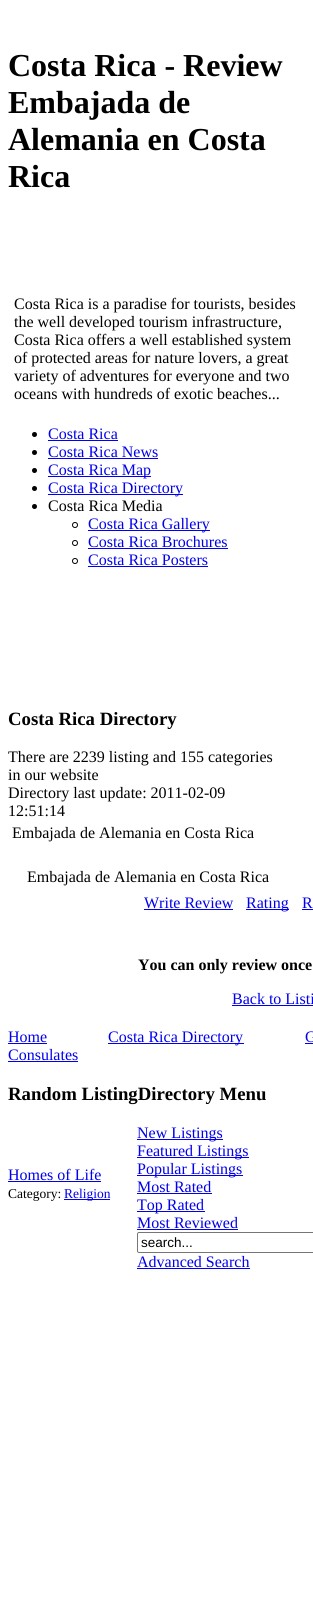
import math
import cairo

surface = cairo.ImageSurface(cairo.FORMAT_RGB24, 313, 1599)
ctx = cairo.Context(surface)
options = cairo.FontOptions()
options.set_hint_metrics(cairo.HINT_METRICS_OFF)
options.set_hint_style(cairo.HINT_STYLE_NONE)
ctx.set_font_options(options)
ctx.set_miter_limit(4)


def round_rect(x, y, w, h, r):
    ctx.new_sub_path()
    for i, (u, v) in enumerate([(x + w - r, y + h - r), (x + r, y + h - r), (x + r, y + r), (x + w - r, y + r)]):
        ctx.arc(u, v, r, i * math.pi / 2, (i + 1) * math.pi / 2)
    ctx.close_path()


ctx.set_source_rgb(1, 1, 1)
ctx.paint()
ctx.select_font_face("Liberation Serif", cairo.FONT_SLANT_NORMAL, cairo.FONT_WEIGHT_BOLD)
ctx.set_font_size(32)
ctx.set_source_rgb(0, 0, 0)
ctx.move_to(8, 76)
ctx.show_text("Costa Rica - Review")
ctx.move_to(8, 113)
ctx.show_text("Embajada de")
ctx.move_to(8, 150)
ctx.show_text("Alemania en Costa")
ctx.move_to(8, 187)
ctx.show_text("Rica")
ctx.select_font_face("Liberation Serif")
ctx.set_font_size(16)
ctx.move_to(14, 309)
ctx.show_text("Costa Rica is a paradise for tourists, besides")
ctx.move_to(14, 327)
ctx.show_text("the well developed tourism infrastructure,")
ctx.move_to(14, 345)
ctx.show_text("Costa Rica offers a well established system")
ctx.move_to(14, 363)
ctx.show_text("of protected areas for nature lovers, a great")
ctx.move_to(14, 381)
ctx.show_text("variety of adventures for everyone and two")
ctx.move_to(14, 399)
ctx.show_text("oceans with hundreds of exotic beaches...")
ctx.new_path()
ctx.arc(34.5, 434.5, 2.5, 0, 2 * math.pi)
ctx.fill()
ctx.set_source_rgb(0, 0, 0.933)
ctx.move_to(48, 439)
ctx.show_text("Costa Rica")
ctx.rectangle(48, 440, 70, 1)
ctx.fill()
ctx.set_source_rgb(0, 0, 0)
ctx.arc(34.5, 452.5, 2.5, 0, 2 * math.pi)
ctx.fill()
ctx.set_source_rgb(0, 0, 0.933)
ctx.move_to(48, 457)
ctx.show_text("Costa Rica News")
ctx.rectangle(48, 458, 110, 1)
ctx.fill()
ctx.set_source_rgb(0, 0, 0)
ctx.arc(34.5, 470.5, 2.5, 0, 2 * math.pi)
ctx.fill()
ctx.set_source_rgb(0, 0, 0.933)
ctx.rectangle(48, 476, 103, 1)
ctx.fill()
ctx.move_to(48, 475)
ctx.show_text("Costa Rica Map")
ctx.set_source_rgb(0, 0, 0)
ctx.new_path()
ctx.arc(34.5, 488.5, 2.5, 0, 2 * math.pi)
ctx.fill()
ctx.set_source_rgb(0, 0, 0.933)
ctx.rectangle(48, 494, 135, 1)
ctx.fill()
ctx.move_to(48, 493)
ctx.show_text("Costa Rica Directory")
ctx.set_source_rgb(0, 0, 0)
ctx.new_path()
ctx.arc(34.5, 506.5, 2.5, 0, 2 * math.pi)
ctx.fill()
ctx.move_to(48, 511)
ctx.show_text("Costa Rica Media")
ctx.new_path()
ctx.arc(75, 525, 2.5, 0, 2 * math.pi)
ctx.set_line_width(1)
ctx.stroke()
ctx.set_source_rgb(0, 0, 0.933)
ctx.rectangle(88, 530, 122, 1)
ctx.fill()
ctx.move_to(88, 529)
ctx.show_text("Costa Rica Gallery")
ctx.new_path()
ctx.arc(75, 543, 2.5, 0, 2 * math.pi)
ctx.set_source_rgb(0, 0, 0)
ctx.stroke()
ctx.set_source_rgb(0, 0, 0.933)
ctx.move_to(88, 547)
ctx.show_text("Costa Rica Brochures")
ctx.rectangle(88, 548, 140, 1)
ctx.fill()
ctx.arc(75, 561, 2.5, 0, 2 * math.pi)
ctx.set_source_rgb(0, 0, 0)
ctx.stroke()
ctx.set_source_rgb(0, 0, 0.933)
ctx.move_to(88, 565)
ctx.show_text("Costa Rica Posters")
ctx.rectangle(88, 566, 120, 1)
ctx.fill()
ctx.select_font_face("Liberation Serif", cairo.FONT_SLANT_NORMAL, cairo.FONT_WEIGHT_BOLD)
ctx.set_font_size(18.75)
ctx.set_source_rgb(0, 0, 0)
ctx.move_to(8, 725)
ctx.show_text("Costa Rica Directory")
ctx.select_font_face("Liberation Serif")
ctx.set_font_size(16)
ctx.move_to(8, 762)
ctx.show_text("There are 2239 listing and 155 categories")
ctx.move_to(8, 780)
ctx.show_text("in our website")
ctx.move_to(8, 798)
ctx.show_text("Directory last update: 2011-02-09")
ctx.move_to(8, 816)
ctx.show_text("12:51:14")
ctx.move_to(12, 838)
ctx.show_text("Embajada de Alemania en Costa Rica")
ctx.move_to(27, 882)
ctx.show_text("Embajada de Alemania en Costa Rica")
ctx.set_source_rgb(0, 0, 0.933)
ctx.move_to(144, 908)
ctx.show_text("Write Review")
ctx.rectangle(144, 909, 89, 1)
ctx.fill()
ctx.rectangle(246, 909, 43, 1)
ctx.fill()
ctx.move_to(246, 908)
ctx.show_text("Rating")
ctx.move_to(302, 908)
ctx.show_text("R")
ctx.rectangle(302, 909, 11, 1)
ctx.fill()
ctx.select_font_face("Liberation Serif", cairo.FONT_SLANT_NORMAL, cairo.FONT_WEIGHT_BOLD)
ctx.set_source_rgb(0, 0, 0)
ctx.move_to(138, 970)
ctx.show_text("You can only review once")
ctx.select_font_face("Liberation Serif")
ctx.set_source_rgb(0, 0, 0.933)
ctx.move_to(232, 1004)
ctx.show_text("Back to Listi")
ctx.rectangle(232, 1005, 81, 1)
ctx.fill()
ctx.move_to(8, 1042)
ctx.show_text("Home")
ctx.rectangle(8, 1043, 39, 1)
ctx.fill()
ctx.rectangle(108, 1043, 136, 1)
ctx.fill()
ctx.move_to(108, 1042)
ctx.show_text("Costa Rica Directory")
ctx.move_to(305, 1042)
ctx.show_text("G")
ctx.rectangle(305, 1043, 8, 1)
ctx.fill()
ctx.move_to(8, 1060)
ctx.show_text("Consulates")
ctx.rectangle(8, 1061, 70, 1)
ctx.fill()
ctx.select_font_face("Liberation Serif", cairo.FONT_SLANT_NORMAL, cairo.FONT_WEIGHT_BOLD)
ctx.set_font_size(18.75)
ctx.set_source_rgb(0, 0, 0)
ctx.move_to(8, 1100)
ctx.show_text("Random ListingDirectory Menu")
ctx.select_font_face("Liberation Serif")
ctx.set_font_size(16)
ctx.set_source_rgb(0, 0, 0.933)
ctx.move_to(8, 1180)
ctx.show_text("Homes of Life")
ctx.rectangle(8, 1181, 93, 1)
ctx.fill()
ctx.set_font_size(13.5)
ctx.set_source_rgb(0, 0, 0)
ctx.move_to(8, 1198)
ctx.show_text("Category:")
ctx.set_source_rgb(0, 0, 0.933)
ctx.rectangle(64, 1199, 46, 1)
ctx.fill()
ctx.move_to(64, 1198)
ctx.show_text("Religion")
ctx.rectangle(137, 1139, 86, 1)
ctx.fill()
ctx.set_font_size(16)
ctx.move_to(137, 1138)
ctx.show_text("New Listings")
ctx.rectangle(137, 1157, 112, 1)
ctx.fill()
ctx.move_to(137, 1156)
ctx.show_text("Featured Listings")
ctx.rectangle(137, 1175, 106, 1)
ctx.fill()
ctx.move_to(137, 1174)
ctx.show_text("Popular Listings")
ctx.move_to(137, 1192)
ctx.show_text("Most Rated")
ctx.rectangle(137, 1193, 75, 1)
ctx.fill()
ctx.rectangle(137, 1211, 68, 1)
ctx.fill()
ctx.move_to(137, 1210)
ctx.show_text("Top Rated")
ctx.move_to(137, 1228)
ctx.show_text("Most Reviewed")
ctx.rectangle(137, 1229, 101, 1)
ctx.fill()
round_rect(137.5, 1232.5, 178, 20, 1.5)
ctx.set_source_rgb(0.463, 0.463, 0.463)
ctx.stroke()
ctx.select_font_face("Liberation Sans")
ctx.set_font_size(13.5)
ctx.set_source_rgb(0, 0, 0)
ctx.move_to(141, 1247)
ctx.show_text("search...")
ctx.select_font_face("Liberation Serif")
ctx.set_font_size(16)
ctx.set_source_rgb(0, 0, 0.933)
ctx.move_to(137, 1267)
ctx.show_text("Advanced Search")
ctx.rectangle(137, 1268, 113, 1)
ctx.fill()
surface.write_to_png("page.png")
